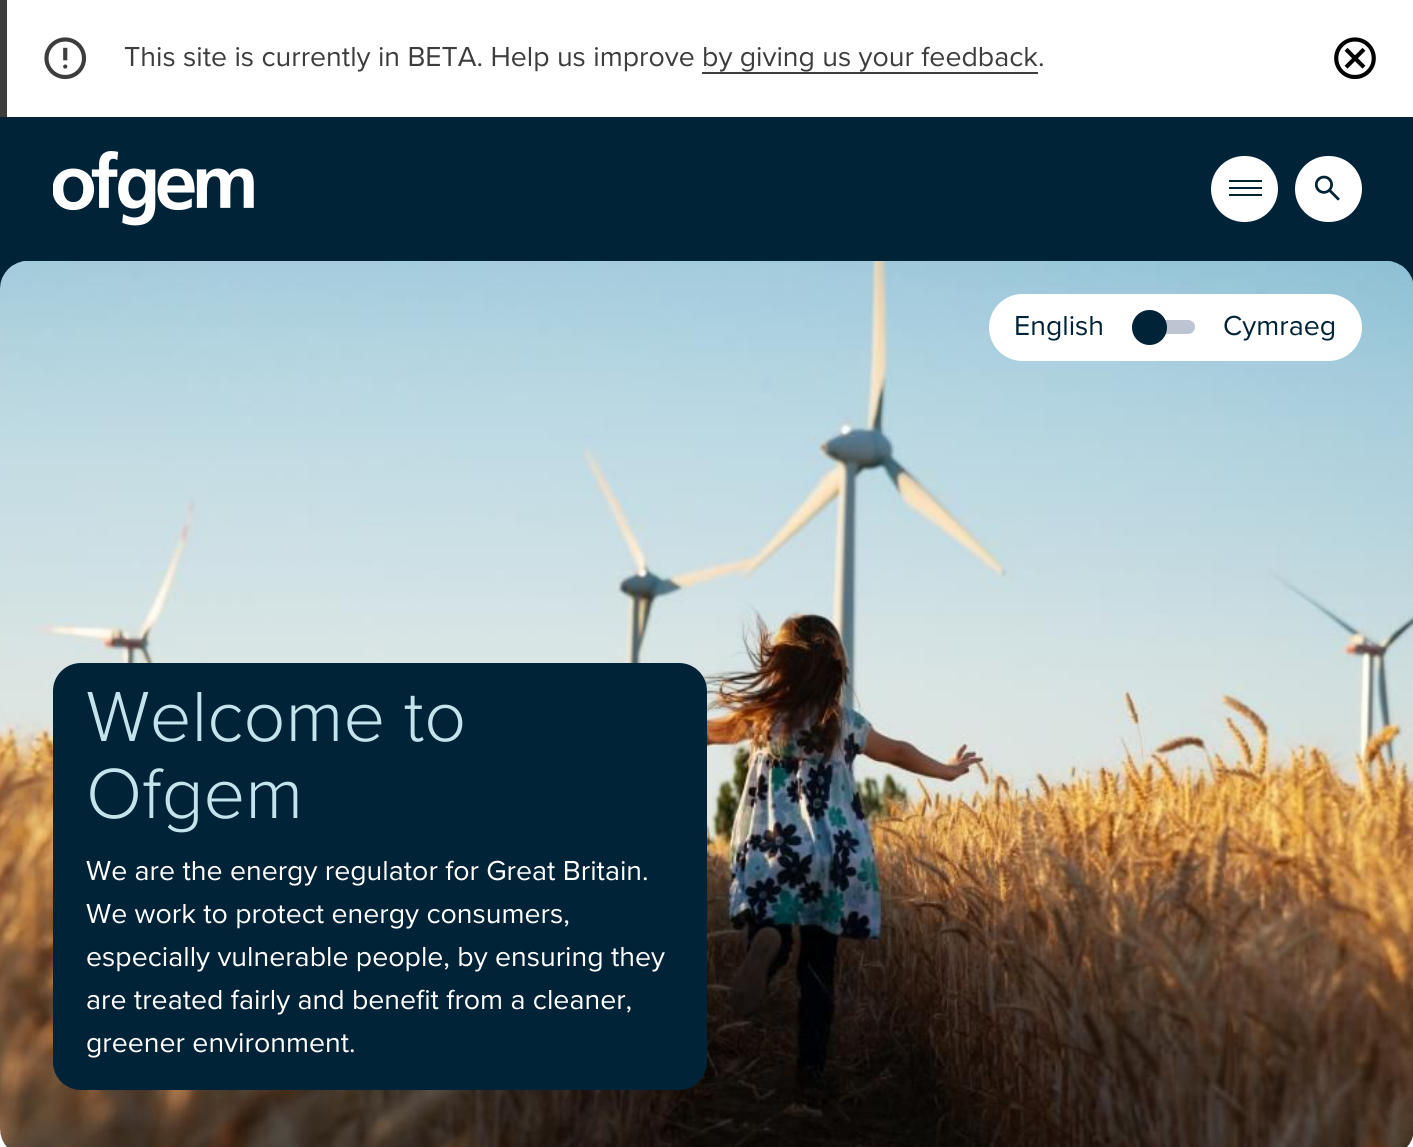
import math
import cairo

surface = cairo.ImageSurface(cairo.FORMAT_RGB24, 1413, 1147)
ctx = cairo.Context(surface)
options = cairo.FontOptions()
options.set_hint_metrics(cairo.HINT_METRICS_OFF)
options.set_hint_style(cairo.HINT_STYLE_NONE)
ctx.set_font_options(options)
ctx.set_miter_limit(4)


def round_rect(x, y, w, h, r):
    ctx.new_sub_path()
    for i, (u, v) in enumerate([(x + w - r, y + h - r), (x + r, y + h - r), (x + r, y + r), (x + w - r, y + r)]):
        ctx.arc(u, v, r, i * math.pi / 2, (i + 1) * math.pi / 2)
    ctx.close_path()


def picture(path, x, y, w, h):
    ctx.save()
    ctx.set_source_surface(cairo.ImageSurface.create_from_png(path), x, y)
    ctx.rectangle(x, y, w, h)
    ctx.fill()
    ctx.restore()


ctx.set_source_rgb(1, 1, 1)
ctx.paint()
ctx.set_source_rgb(0.239, 0.239, 0.239)
ctx.rectangle(0, 0, 7, 117)
ctx.fill()
picture("img1.png", 44, 37, 43, 43)
ctx.select_font_face("Proxima Nova")
ctx.set_font_size(28.5)
ctx.move_to(124, 66)
ctx.show_text("This site is currently in BETA. Help us improve")
ctx.move_to(702, 66)
ctx.show_text("by giving us your feedback.")
ctx.rectangle(702, 72, 336, 2)
ctx.fill()
picture("img2.png", 1334, 37, 42, 43)
ctx.set_source_rgb(0, 0.137, 0.216)
ctx.rectangle(0, 117, 1413, 172)
ctx.fill()
picture("img3.png", 53, 151, 201, 75)
ctx.set_source_rgb(1, 1, 1)
round_rect(1211, 156, 67, 66, 33)
ctx.fill()
ctx.set_source_rgb(0, 0.137, 0.216)
ctx.rectangle(1229, 187, 33, 2)
ctx.fill()
ctx.rectangle(1229, 180, 33, 2)
ctx.fill()
ctx.rectangle(1229, 194, 33, 2)
ctx.fill()
ctx.set_source_rgb(1, 1, 1)
round_rect(1295, 156, 67, 66, 33)
ctx.fill()
picture("img4.png", 1314, 175, 26, 26)
picture("img5.png", 0, 261, 1413, 886)
round_rect(989, 294, 373, 67, 33.5)
ctx.fill()
ctx.set_source_rgb(0, 0.137, 0.216)
ctx.move_to(1014, 335)
ctx.show_text("English")
ctx.set_source_rgb(0.737, 0.773, 0.82)
round_rect(1132, 320, 63, 14, 7)
ctx.fill()
ctx.set_source_rgb(0, 0.137, 0.216)
ctx.arc(1149.5, 327.5, 17.5, 0, 2 * math.pi)
ctx.fill()
ctx.move_to(1223, 335)
ctx.show_text("Cymraeg")
round_rect(53, 663, 654, 427, 28)
ctx.fill()
ctx.select_font_face("Proxima Nova Light")
ctx.set_font_size(73.5)
ctx.set_source_rgb(0.765, 0.894, 0.922)
ctx.move_to(86, 741)
ctx.show_text("Welcome to")
ctx.move_to(86, 818)
ctx.show_text("Ofgem")
ctx.select_font_face("Proxima Nova")
ctx.set_font_size(28.5)
ctx.set_source_rgb(1, 1, 1)
ctx.move_to(86, 880)
ctx.show_text("We are the energy regulator for Great Britain.")
ctx.move_to(86, 923)
ctx.show_text("We work to protect energy consumers,")
ctx.move_to(86, 966)
ctx.show_text("especially vulnerable people, by ensuring they")
ctx.move_to(86, 1009)
ctx.show_text("are treated fairly and benefit from a cleaner,")
ctx.move_to(86, 1052)
ctx.show_text("greener environment.")
surface.write_to_png("page.png")
